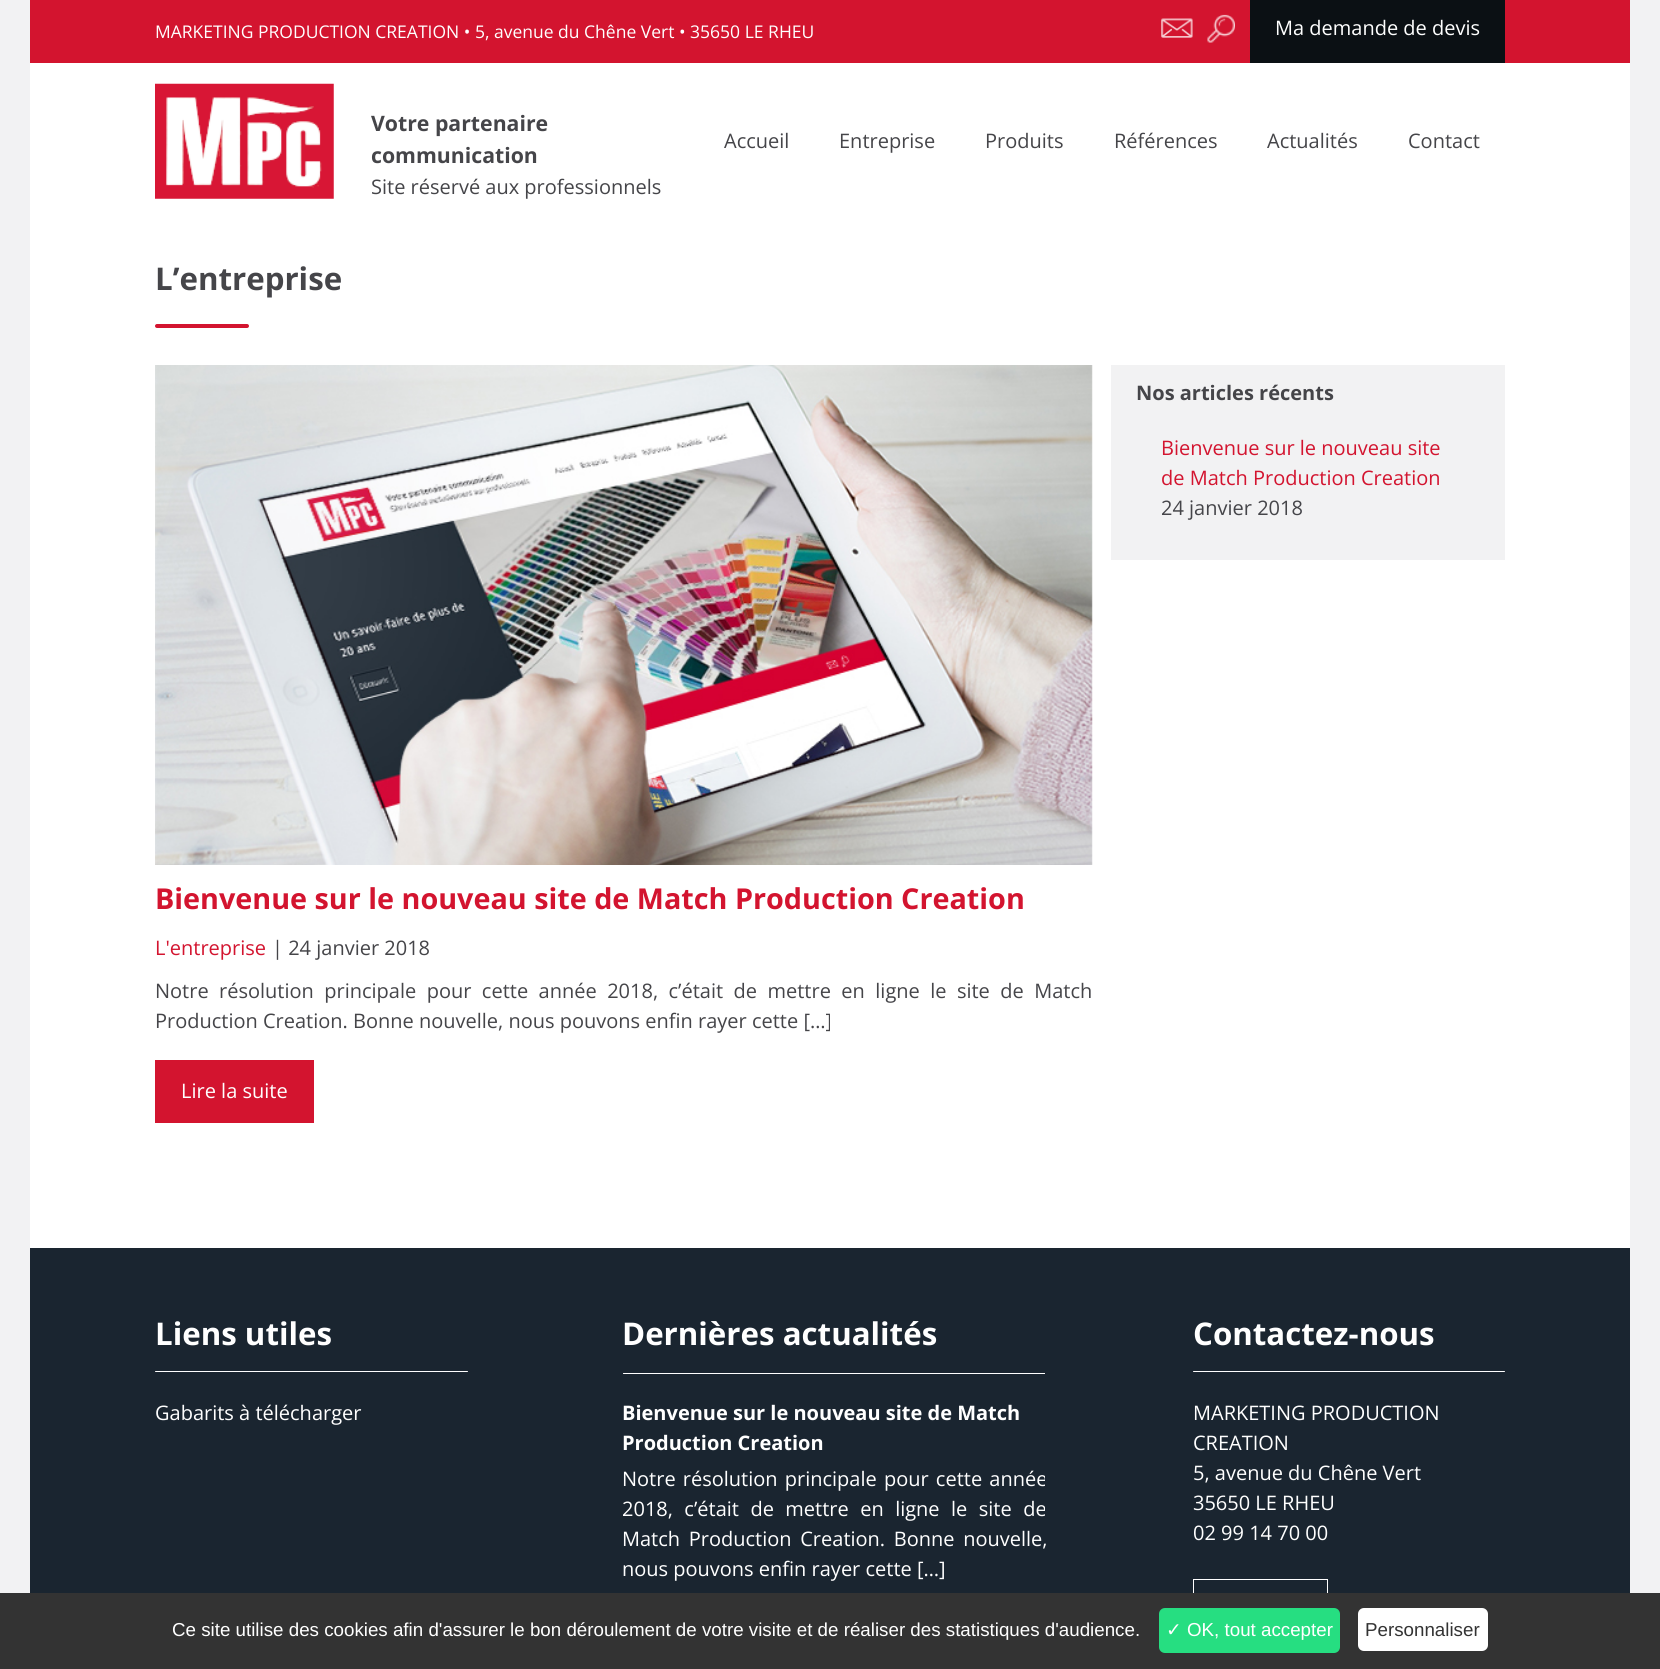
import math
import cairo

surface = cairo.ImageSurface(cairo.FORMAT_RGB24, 1660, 1669)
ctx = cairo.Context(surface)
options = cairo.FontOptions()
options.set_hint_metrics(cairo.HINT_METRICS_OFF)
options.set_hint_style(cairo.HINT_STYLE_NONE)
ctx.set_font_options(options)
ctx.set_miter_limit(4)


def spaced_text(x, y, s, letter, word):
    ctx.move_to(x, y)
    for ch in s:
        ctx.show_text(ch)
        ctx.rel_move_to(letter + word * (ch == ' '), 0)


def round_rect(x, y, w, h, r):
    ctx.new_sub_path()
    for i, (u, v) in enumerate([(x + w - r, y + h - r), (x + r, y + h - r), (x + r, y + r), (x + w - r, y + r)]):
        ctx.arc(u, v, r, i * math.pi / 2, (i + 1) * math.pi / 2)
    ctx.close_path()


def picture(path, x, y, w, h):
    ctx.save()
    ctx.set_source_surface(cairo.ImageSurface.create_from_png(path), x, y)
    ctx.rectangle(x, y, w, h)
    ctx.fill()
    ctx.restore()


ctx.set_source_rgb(0.949, 0.949, 0.953)
ctx.paint()
ctx.set_source_rgb(1, 1, 1)
ctx.rectangle(30, 63, 1600, 1185)
ctx.fill()
ctx.set_source_rgb(0.827, 0.082, 0.184)
ctx.rectangle(30, 0, 1600, 63)
ctx.fill()
ctx.select_font_face("Open Sans")
ctx.set_font_size(17.5)
ctx.set_source_rgb(1, 1, 1)
ctx.move_to(155, 38)
ctx.show_text("MARKETING PRODUCTION CREATION • 5, avenue du Chêne Vert • 35650 LE RHEU")
picture("img1.png", 1161, 18, 32, 20)
picture("img2.png", 1207, 14, 28, 29)
ctx.set_source_rgb(0.043, 0.063, 0.082)
ctx.rectangle(1250, 0, 255, 63)
ctx.fill()
ctx.set_font_size(20)
ctx.set_source_rgb(1, 1, 1)
ctx.move_to(1275, 35)
ctx.show_text("Ma demande de devis")
picture("img3.png", 155, 83, 179, 116)
ctx.select_font_face("Open Sans", cairo.FONT_SLANT_NORMAL, cairo.FONT_WEIGHT_BOLD)
ctx.set_font_size(21.25)
ctx.set_source_rgb(0.271, 0.271, 0.286)
ctx.move_to(371, 131)
ctx.show_text("Votre partenaire")
ctx.move_to(371, 163)
ctx.show_text("communication")
ctx.select_font_face("Open Sans")
ctx.set_font_size(20)
ctx.move_to(371, 194)
ctx.show_text("Site réservé aux professionnels")
ctx.move_to(724, 148)
ctx.show_text("Accueil")
ctx.move_to(839, 148)
ctx.show_text("Entreprise")
ctx.move_to(985, 148)
ctx.show_text("Produits")
ctx.move_to(1114, 148)
ctx.show_text("Références")
ctx.move_to(1267, 148)
ctx.show_text("Actualités")
ctx.move_to(1408, 148)
ctx.show_text("Contact")
ctx.select_font_face("Open Sans", cairo.FONT_SLANT_NORMAL, cairo.FONT_WEIGHT_BOLD)
ctx.set_font_size(31.25)
ctx.move_to(155, 290)
ctx.show_text("L’entreprise")
ctx.set_source_rgb(0.827, 0.082, 0.184)
round_rect(155, 324, 94, 4, 2)
ctx.fill()
picture("img4.png", 155, 365, 938, 500)
ctx.set_font_size(28.75)
ctx.move_to(155, 909)
ctx.show_text("Bienvenue sur le nouveau site de Match Production Creation")
ctx.select_font_face("Open Sans")
ctx.set_font_size(20)
ctx.move_to(155, 955)
ctx.show_text("L'entreprise")
ctx.set_source_rgb(0.271, 0.271, 0.286)
ctx.move_to(272, 955)
ctx.show_text("| 24 janvier 2018")
spaced_text(155, 998, "Notre résolution principale pour cette année 2018, c’était de mettre en ligne le site de Match", 0, 5.25)
ctx.move_to(155, 1028)
ctx.show_text("Production Creation. Bonne nouvelle, nous pouvons enfin rayer cette […]")
ctx.set_source_rgb(0.827, 0.082, 0.184)
ctx.rectangle(155, 1060, 159, 63)
ctx.fill()
ctx.set_source_rgb(1, 1, 1)
ctx.move_to(181, 1098)
ctx.show_text("Lire la suite")
ctx.set_source_rgb(0.949, 0.949, 0.953)
ctx.rectangle(1111, 365, 394, 195)
ctx.fill()
ctx.select_font_face("Open Sans", cairo.FONT_SLANT_NORMAL, cairo.FONT_WEIGHT_BOLD)
ctx.set_source_rgb(0.271, 0.271, 0.286)
ctx.move_to(1136, 400)
ctx.show_text("Nos articles récents")
ctx.select_font_face("Open Sans")
ctx.set_source_rgb(0.827, 0.082, 0.184)
ctx.move_to(1161, 455)
ctx.show_text("Bienvenue sur le nouveau site")
ctx.move_to(1161, 485)
ctx.show_text("de Match Production Creation")
ctx.set_source_rgb(0.271, 0.271, 0.286)
ctx.move_to(1161, 515)
ctx.show_text("24 janvier 2018")
ctx.set_source_rgb(0.102, 0.145, 0.188)
ctx.rectangle(30, 1248, 1600, 345)
ctx.fill()
ctx.select_font_face("Open Sans", cairo.FONT_SLANT_NORMAL, cairo.FONT_WEIGHT_BOLD)
ctx.set_font_size(31.25)
ctx.set_source_rgb(1, 1, 1)
ctx.move_to(155, 1345)
ctx.show_text("Liens utiles")
round_rect(155, 1371, 313, 1, 0.5)
ctx.fill()
ctx.select_font_face("Open Sans")
ctx.set_font_size(20)
ctx.move_to(155, 1420)
ctx.show_text("Gabarits à télécharger")
ctx.select_font_face("Open Sans", cairo.FONT_SLANT_NORMAL, cairo.FONT_WEIGHT_BOLD)
ctx.set_font_size(31.25)
ctx.move_to(622, 1345)
ctx.show_text("Dernières actualités")
ctx.new_path()
ctx.move_to(623.5, 1373)
ctx.line_to(1045, 1373)
ctx.line_to(1045, 1374)
ctx.line_to(623.5, 1374)
ctx.curve_to(623, 1374, 623, 1374, 623, 1373.5)
ctx.curve_to(623, 1373, 623, 1373, 623.5, 1373)
ctx.close_path()
ctx.fill()
ctx.set_font_size(20)
ctx.move_to(622, 1420)
ctx.show_text("Bienvenue sur le nouveau site de Match")
ctx.move_to(622, 1450)
ctx.show_text("Production Creation")
ctx.save()
ctx.rectangle(623, 1398, 422, 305)
ctx.clip()
ctx.select_font_face("Open Sans")
spaced_text(622, 1486, "Notre résolution principale pour cette année", 0, 2)
spaced_text(622, 1516, "2018, c’était de mettre en ligne le site de", 0, 6.25)
ctx.restore()
ctx.select_font_face("Open Sans")
spaced_text(622, 1546, "Match Production Creation. Bonne nouvelle,", 0, 3.5)
ctx.move_to(622, 1576)
ctx.show_text("nous pouvons enfin rayer cette […]")
ctx.select_font_face("Open Sans", cairo.FONT_SLANT_NORMAL, cairo.FONT_WEIGHT_BOLD)
ctx.set_font_size(31.25)
ctx.move_to(1193, 1345)
ctx.show_text("Contactez-nous")
round_rect(1193, 1371, 312, 1, 0.5)
ctx.fill()
ctx.select_font_face("Open Sans")
ctx.set_font_size(20)
ctx.move_to(1193, 1420)
ctx.show_text("MARKETING PRODUCTION")
ctx.move_to(1193, 1450)
ctx.show_text("CREATION")
ctx.move_to(1193, 1480)
ctx.show_text("5, avenue du Chêne Vert")
ctx.move_to(1193, 1510)
ctx.show_text("35650 LE RHEU")
ctx.move_to(1193, 1540)
ctx.show_text("02 99 14 70 00")
ctx.rectangle(1193.5, 1579.5, 134, 61)
ctx.set_line_width(1)
ctx.stroke()
ctx.set_source_rgb(0.2, 0.2, 0.2)
ctx.rectangle(0, 1593, 1660, 76)
ctx.fill()
ctx.select_font_face("Liberation Sans")
ctx.set_font_size(18.75)
ctx.set_source_rgb(1, 1, 1)
ctx.move_to(172, 1636)
ctx.show_text("Ce site utilise des cookies afin d'assurer le bon déroulement de votre visite et de réaliser des statistiques d'audience.")
ctx.set_source_rgb(0.149, 0.871, 0.506)
round_rect(1159, 1608, 181, 45, 6)
ctx.fill()
ctx.select_font_face("DejaVu Sans")
ctx.set_source_rgb(1, 1, 1)
ctx.move_to(1166, 1636)
ctx.show_text("✓")
ctx.select_font_face("Liberation Sans")
ctx.move_to(1187, 1636)
ctx.show_text("OK, tout accepter")
round_rect(1358, 1608, 130, 43, 6)
ctx.fill()
ctx.set_source_rgb(0.2, 0.2, 0.2)
ctx.move_to(1365, 1636)
ctx.show_text("Personnaliser")
surface.write_to_png("page.png")
